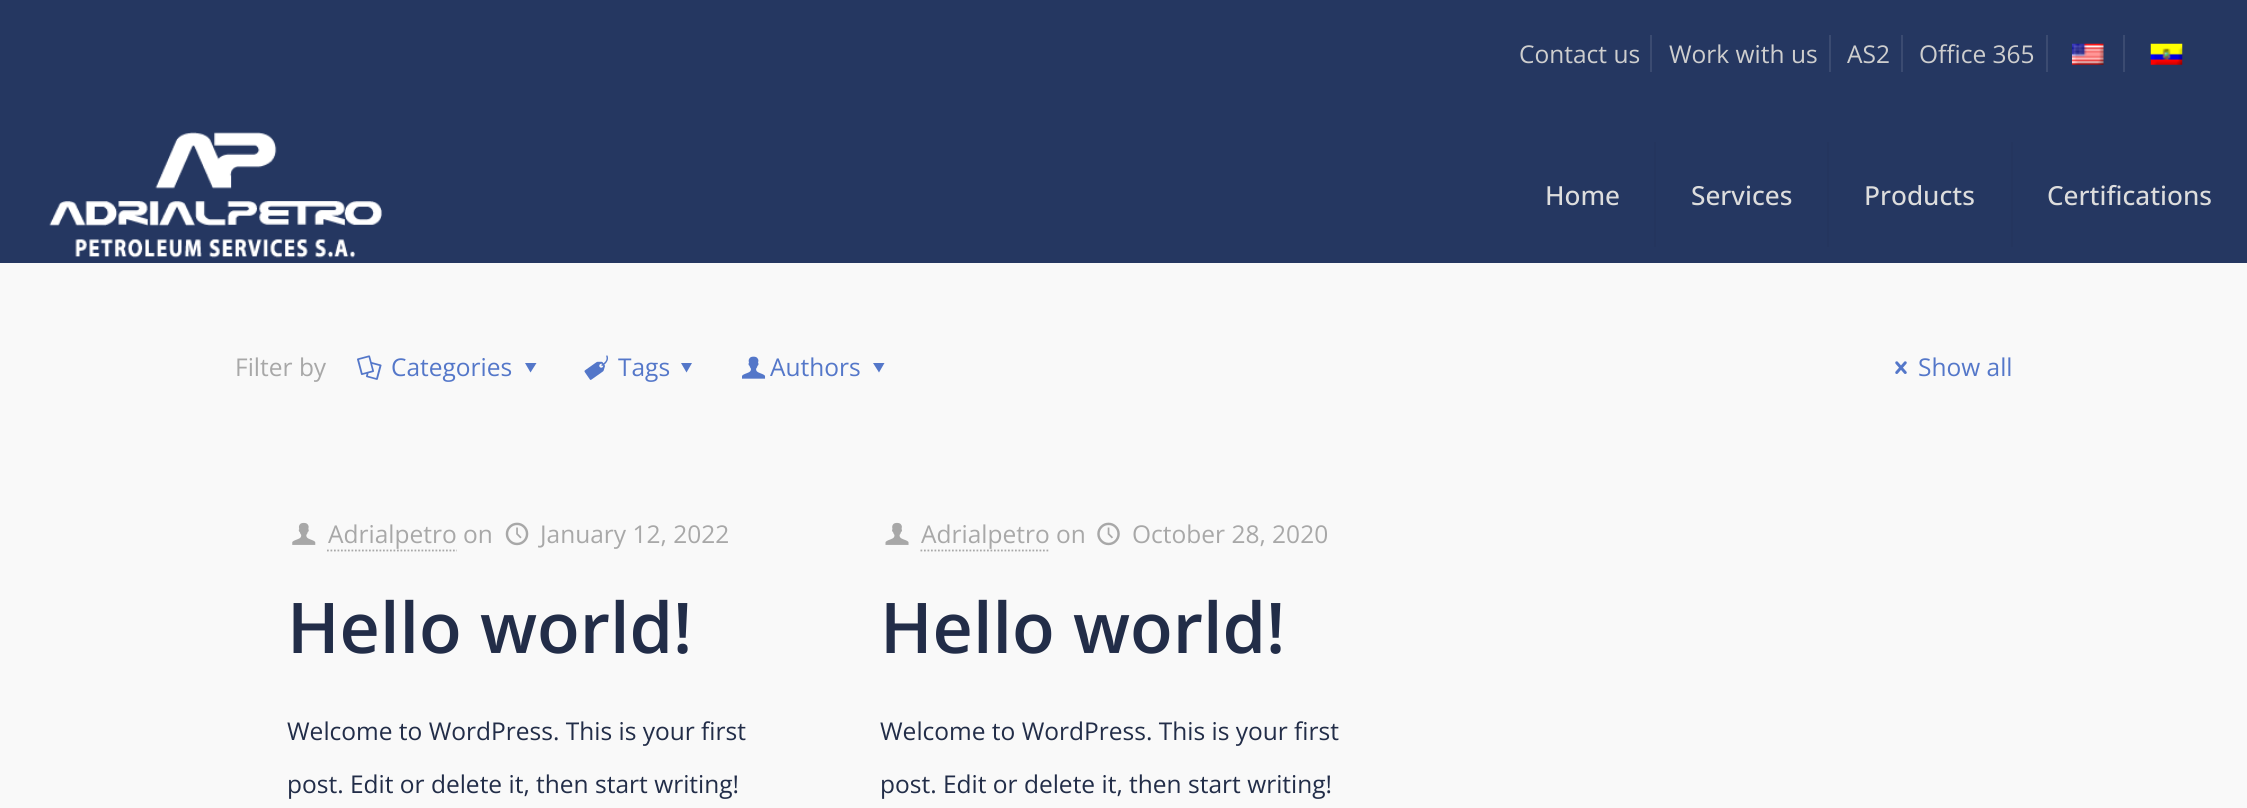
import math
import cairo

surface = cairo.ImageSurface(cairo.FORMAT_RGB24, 2247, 808)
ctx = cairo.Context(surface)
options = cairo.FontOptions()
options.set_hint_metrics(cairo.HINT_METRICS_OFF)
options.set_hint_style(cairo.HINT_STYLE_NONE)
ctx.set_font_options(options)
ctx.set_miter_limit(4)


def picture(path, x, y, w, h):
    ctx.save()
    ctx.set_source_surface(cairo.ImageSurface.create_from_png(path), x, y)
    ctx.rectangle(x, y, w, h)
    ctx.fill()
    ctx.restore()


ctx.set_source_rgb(0.976, 0.976, 0.976)
ctx.paint()
ctx.set_source_rgb(0.145, 0.216, 0.38)
ctx.rectangle(0, 0, 2247, 263)
ctx.fill()
ctx.set_source_rgb(0.231, 0.294, 0.443)
ctx.rectangle(1650, 35, 2, 37)
ctx.fill()
ctx.select_font_face("Open Sans")
ctx.set_font_size(24.5)
ctx.set_source_rgb(0.808, 0.808, 0.808)
ctx.move_to(1519, 63)
ctx.show_text("Contact us")
ctx.set_source_rgb(0.231, 0.294, 0.443)
ctx.rectangle(1829, 35, 2, 37)
ctx.fill()
ctx.set_source_rgb(0.808, 0.808, 0.808)
ctx.move_to(1669, 63)
ctx.show_text("Work with us")
ctx.set_source_rgb(0.231, 0.294, 0.443)
ctx.rectangle(1901, 35, 2, 37)
ctx.fill()
ctx.set_source_rgb(0.808, 0.808, 0.808)
ctx.move_to(1847, 63)
ctx.show_text("AS2")
ctx.set_source_rgb(0.231, 0.294, 0.443)
ctx.rectangle(2046, 35, 2, 37)
ctx.fill()
ctx.set_source_rgb(0.808, 0.808, 0.808)
ctx.move_to(1919, 63)
ctx.show_text("Office 365")
ctx.set_source_rgb(0.231, 0.294, 0.443)
ctx.rectangle(2123, 35, 2, 37)
ctx.fill()
picture("img1.png", 2072, 43, 32, 22)
picture("img2.png", 2150, 43, 33, 22)
picture("img3.png", 49, 132, 334, 126)
ctx.set_source_rgb(0.141, 0.208, 0.369)
ctx.rectangle(1654, 142, 2, 105)
ctx.fill()
ctx.select_font_face("Open Sans Medium")
ctx.set_font_size(26.25)
ctx.set_source_rgb(0.867, 0.867, 0.867)
ctx.move_to(1545, 205)
ctx.show_text("Home")
ctx.set_source_rgb(0.141, 0.208, 0.369)
ctx.rectangle(1827, 142, 2, 105)
ctx.fill()
ctx.set_source_rgb(0.867, 0.867, 0.867)
ctx.move_to(1691, 205)
ctx.show_text("Services")
ctx.set_source_rgb(0.141, 0.208, 0.369)
ctx.rectangle(2011, 142, 2, 105)
ctx.fill()
ctx.set_source_rgb(0.867, 0.867, 0.867)
ctx.move_to(1864, 205)
ctx.show_text("Products")
ctx.move_to(2047, 205)
ctx.show_text("Certifications")
ctx.select_font_face("Open Sans")
ctx.set_font_size(24.5)
ctx.set_source_rgb(0.659, 0.659, 0.659)
ctx.move_to(235, 376)
ctx.show_text("Filter by")
picture("img4.png", 357, 355, 25, 25)
ctx.set_source_rgb(0.329, 0.467, 0.788)
ctx.move_to(391, 376)
ctx.show_text("Categories")
ctx.new_path()
ctx.move_to(536.5, 363)
ctx.line_to(530.5, 372.5)
ctx.line_to(525, 363)
ctx.close_path()
ctx.fill()
picture("img5.png", 584, 355, 24, 25)
ctx.move_to(618, 376)
ctx.show_text("Tags")
ctx.new_path()
ctx.move_to(692, 363)
ctx.line_to(686.5, 372.5)
ctx.line_to(681, 363)
ctx.close_path()
ctx.fill()
picture("img6.png", 742, 356, 24, 23)
ctx.move_to(770, 376)
ctx.show_text("Authors")
ctx.new_path()
ctx.move_to(884.5, 363)
ctx.line_to(879, 372.5)
ctx.line_to(873, 363)
ctx.close_path()
ctx.fill()
picture("img7.png", 1895, 361, 12, 13)
ctx.move_to(1918, 376)
ctx.show_text("Show all")
picture("img8.png", 292, 522, 24, 23)
ctx.set_source_rgb(0.659, 0.659, 0.659)
ctx.move_to(328, 543)
ctx.show_text("Adrialpetro on")
ctx.new_path()
ctx.move_to(327, 550.5)
ctx.line_to(457, 550.5)
ctx.set_line_width(1.8)
ctx.set_dash([1.75, 1.75])
ctx.stroke()
picture("img9.png", 505, 522, 24, 24)
ctx.move_to(540, 543)
ctx.show_text("January 12, 2022")
ctx.select_font_face("Open Sans SemiBold")
ctx.set_font_size(70)
ctx.set_source_rgb(0.133, 0.176, 0.282)
ctx.move_to(287, 653)
ctx.show_text("Hello world!")
ctx.select_font_face("Open Sans")
ctx.set_font_size(24.5)
ctx.move_to(287, 740)
ctx.show_text("Welcome to WordPress. This is your first")
ctx.move_to(287, 793)
ctx.show_text("post. Edit or delete it, then start writing!")
picture("img10.png", 885, 522, 24, 23)
ctx.set_source_rgb(0.659, 0.659, 0.659)
ctx.move_to(921, 543)
ctx.show_text("Adrialpetro on")
ctx.new_path()
ctx.move_to(920.5, 550.5)
ctx.line_to(1050, 550.5)
ctx.stroke()
picture("img11.png", 1097, 522, 23, 24)
ctx.move_to(1132, 543)
ctx.show_text("October 28, 2020")
ctx.select_font_face("Open Sans SemiBold")
ctx.set_font_size(70)
ctx.set_source_rgb(0.133, 0.176, 0.282)
ctx.move_to(880, 653)
ctx.show_text("Hello world!")
ctx.select_font_face("Open Sans")
ctx.set_font_size(24.5)
ctx.move_to(880, 740)
ctx.show_text("Welcome to WordPress. This is your first")
ctx.move_to(880, 793)
ctx.show_text("post. Edit or delete it, then start writing!")
surface.write_to_png("page.png")
